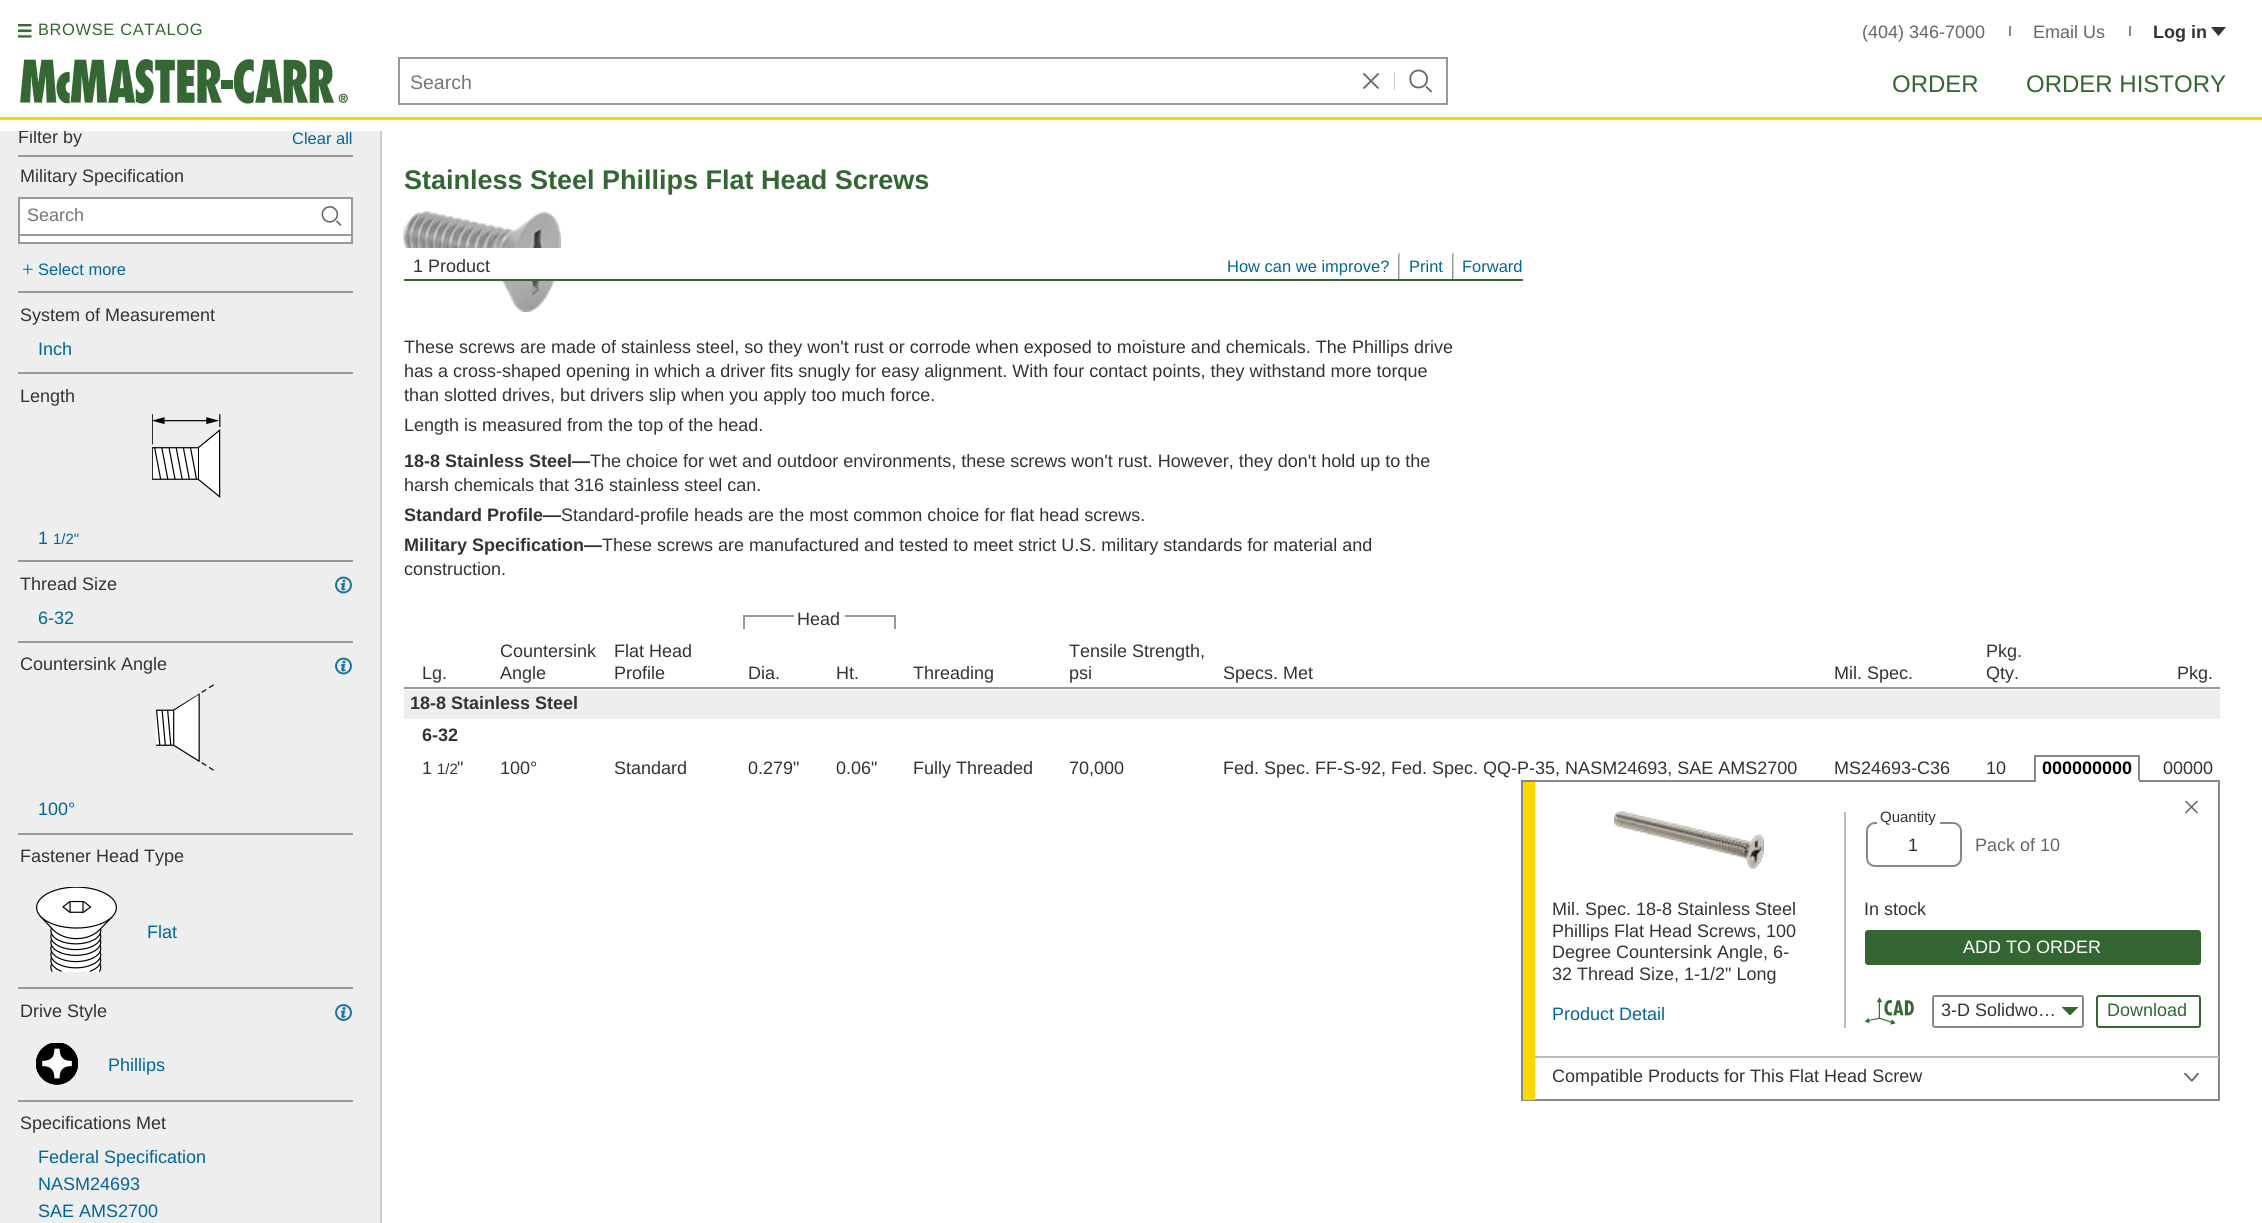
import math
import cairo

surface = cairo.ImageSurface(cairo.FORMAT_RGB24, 2262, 1223)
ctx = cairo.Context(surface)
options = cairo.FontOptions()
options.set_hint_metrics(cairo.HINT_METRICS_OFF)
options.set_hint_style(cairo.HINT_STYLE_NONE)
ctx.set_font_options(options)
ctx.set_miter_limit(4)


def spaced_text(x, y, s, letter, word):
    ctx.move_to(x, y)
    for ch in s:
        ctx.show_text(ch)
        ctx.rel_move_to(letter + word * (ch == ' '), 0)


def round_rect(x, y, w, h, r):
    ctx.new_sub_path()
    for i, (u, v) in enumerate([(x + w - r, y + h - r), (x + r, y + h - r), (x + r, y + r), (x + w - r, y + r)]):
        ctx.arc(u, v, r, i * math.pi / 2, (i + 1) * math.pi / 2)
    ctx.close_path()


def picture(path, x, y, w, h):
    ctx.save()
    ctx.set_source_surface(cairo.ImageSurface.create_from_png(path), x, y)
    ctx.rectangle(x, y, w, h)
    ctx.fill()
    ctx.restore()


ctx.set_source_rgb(1, 1, 1)
ctx.paint()
ctx.set_source_rgb(0.933, 0.933, 0.933)
ctx.rectangle(0, 131, 380, 1092)
ctx.fill()
ctx.select_font_face("Liberation Sans")
ctx.set_font_size(18)
ctx.set_source_rgb(0.2, 0.2, 0.2)
ctx.move_to(18, 143)
ctx.show_text("Filter by")
ctx.set_source_rgb(1, 1, 1)
ctx.rectangle(19, 129, 47, 2)
ctx.fill()
ctx.set_source_rgb(0.996, 0.843, 0)
ctx.rectangle(0, 117, 2262, 3)
ctx.fill()
picture("img1.png", 18, 24, 14, 14)
ctx.set_font_size(16.5)
ctx.set_source_rgb(0.2, 0.4, 0.2)
spaced_text(38, 35, "BROWSE CATALOG", 0.6, 0)
ctx.set_font_size(18)
ctx.set_source_rgb(0.4, 0.4, 0.4)
ctx.move_to(1862, 38)
ctx.show_text("(404) 346-7000")
ctx.set_source_rgb(0.529, 0.529, 0.529)
ctx.rectangle(2009, 26, 2, 10)
ctx.fill()
ctx.set_source_rgb(0.4, 0.4, 0.4)
ctx.move_to(2033, 38)
ctx.show_text("Email Us")
ctx.set_source_rgb(0.529, 0.529, 0.529)
ctx.rectangle(2129, 26, 2, 10)
ctx.fill()
ctx.select_font_face("Liberation Sans", cairo.FONT_SLANT_NORMAL, cairo.FONT_WEIGHT_BOLD)
ctx.set_source_rgb(0.2, 0.2, 0.2)
ctx.move_to(2153, 38)
ctx.show_text("Log in")
ctx.new_path()
ctx.move_to(2211, 27)
ctx.line_to(2218.5, 36)
ctx.line_to(2226, 27)
ctx.close_path()
ctx.fill()
picture("img2.png", 20, 59, 328, 45)
ctx.rectangle(399, 58, 1048, 46)
ctx.set_source_rgb(0.6, 0.6, 0.6)
ctx.stroke()
ctx.select_font_face("Liberation Sans")
ctx.set_font_size(19.5)
ctx.set_source_rgb(0.459, 0.459, 0.459)
ctx.move_to(410, 89)
ctx.show_text("Search")
ctx.new_path()
ctx.move_to(1363.5, 73.5)
ctx.line_to(1378.5, 88.5)
ctx.move_to(1378.5, 73.5)
ctx.line_to(1363.5, 88.5)
ctx.set_source_rgb(0.4, 0.4, 0.4)
ctx.set_line_width(1.8)
ctx.stroke()
ctx.set_source_rgb(0.796, 0.796, 0.796)
ctx.rectangle(1394, 72, 1, 18)
ctx.fill()
ctx.new_path()
ctx.move_to(1426, 86.5)
ctx.line_to(1431.5, 92)
ctx.move_to(1418.5, 87.5)
ctx.curve_to(1430, 87.5, 1430, 70.5, 1418.5, 70.5)
ctx.curve_to(1407.5, 70.5, 1407.5, 87.5, 1418.5, 87.5)
ctx.close_path()
ctx.set_source_rgb(0.4, 0.4, 0.4)
ctx.stroke()
ctx.set_font_size(24)
ctx.set_source_rgb(0.2, 0.4, 0.2)
ctx.move_to(1892, 92)
ctx.show_text("ORDER")
ctx.move_to(2026, 92)
ctx.show_text("ORDER HISTORY")
ctx.set_source_rgb(0.8, 0.8, 0.8)
ctx.rectangle(380, 131, 2, 1092)
ctx.fill()
ctx.set_source_rgb(0.6, 0.6, 0.6)
ctx.rectangle(18, 155, 335, 2)
ctx.fill()
ctx.set_font_size(16.5)
ctx.set_source_rgb(0, 0.4, 0.6)
ctx.move_to(292, 144)
ctx.show_text("Clear all")
ctx.set_font_size(18)
ctx.set_source_rgb(0.2, 0.2, 0.2)
ctx.move_to(20, 182)
ctx.show_text("Military Specification")
ctx.set_source_rgb(1, 1, 1)
ctx.rectangle(19, 198, 333, 37)
ctx.fill_preserve()
ctx.set_source_rgb(0.6, 0.6, 0.6)
ctx.set_line_width(2)
ctx.stroke()
ctx.set_source_rgb(0.459, 0.459, 0.459)
ctx.move_to(27, 221)
ctx.show_text("Search")
picture("img3.png", 321, 206, 21, 20)
ctx.set_source_rgb(1, 1, 1)
ctx.rectangle(20, 236, 331, 6)
ctx.fill()
ctx.set_source_rgb(0.6, 0.6, 0.6)
ctx.rectangle(351, 236, 2, 7)
ctx.fill()
ctx.rectangle(18, 242, 335, 2)
ctx.fill()
ctx.rectangle(18, 236, 2, 7)
ctx.fill()
picture("img4.png", 23, 264, 10, 11)
ctx.set_font_size(16.5)
ctx.set_source_rgb(0, 0.4, 0.6)
ctx.move_to(38, 275)
ctx.show_text("Select more")
ctx.set_source_rgb(0.6, 0.6, 0.6)
ctx.rectangle(18, 291, 335, 2)
ctx.fill()
ctx.set_font_size(18)
ctx.set_source_rgb(0.2, 0.2, 0.2)
ctx.move_to(20, 321)
ctx.show_text("System of Measurement")
ctx.set_source_rgb(0, 0.4, 0.6)
ctx.move_to(38, 355)
ctx.show_text("Inch")
ctx.set_source_rgb(0.6, 0.6, 0.6)
ctx.rectangle(18, 372, 335, 2)
ctx.fill()
ctx.set_source_rgb(0.2, 0.2, 0.2)
ctx.move_to(20, 402)
ctx.show_text("Length")
picture("img5.png", 152, 414, 69, 84)
ctx.set_source_rgb(0, 0.4, 0.6)
ctx.move_to(38, 544)
ctx.show_text("1")
ctx.set_font_size(15)
ctx.move_to(53, 544)
ctx.show_text("1/2\"")
ctx.set_source_rgb(0.6, 0.6, 0.6)
ctx.rectangle(18, 560, 335, 2)
ctx.fill()
ctx.set_font_size(18)
ctx.set_source_rgb(0.2, 0.2, 0.2)
ctx.move_to(20, 590)
ctx.show_text("Thread Size")
picture("img6.png", 335, 576, 17, 18)
ctx.set_source_rgb(0, 0.4, 0.6)
ctx.move_to(38, 624)
ctx.show_text("6-32")
ctx.set_source_rgb(0.6, 0.6, 0.6)
ctx.rectangle(18, 641, 335, 2)
ctx.fill()
ctx.set_source_rgb(0.2, 0.2, 0.2)
ctx.move_to(20, 670)
ctx.show_text("Countersink Angle")
picture("img6.png", 335, 657, 17, 18)
picture("img7.png", 156, 684, 58, 87)
ctx.set_source_rgb(0, 0.4, 0.6)
ctx.move_to(38, 815)
ctx.show_text("100°")
ctx.set_source_rgb(0.6, 0.6, 0.6)
ctx.rectangle(18, 833, 335, 2)
ctx.fill()
ctx.set_source_rgb(0.2, 0.2, 0.2)
ctx.move_to(20, 862)
ctx.show_text("Fastener Head Type")
picture("img8.png", 36, 887, 81, 85)
ctx.set_source_rgb(0, 0.4, 0.6)
ctx.move_to(147, 938)
ctx.show_text("Flat")
ctx.set_source_rgb(0.6, 0.6, 0.6)
ctx.rectangle(18, 987, 335, 2)
ctx.fill()
ctx.set_source_rgb(0.2, 0.2, 0.2)
ctx.move_to(20, 1017)
ctx.show_text("Drive Style")
picture("img9.png", 335, 1004, 17, 17)
picture("img10.png", 36, 1043, 42, 42)
ctx.set_source_rgb(0, 0.4, 0.6)
ctx.move_to(108, 1071)
ctx.show_text("Phillips")
ctx.set_source_rgb(0.6, 0.6, 0.6)
ctx.rectangle(18, 1100, 335, 2)
ctx.fill()
ctx.set_source_rgb(0.2, 0.2, 0.2)
ctx.move_to(20, 1129)
ctx.show_text("Specifications Met")
ctx.set_source_rgb(0, 0.4, 0.6)
ctx.move_to(38, 1163)
ctx.show_text("Federal Specification")
ctx.move_to(38, 1190)
ctx.show_text("NASM24693")
ctx.move_to(38, 1217)
ctx.show_text("SAE AMS2700")
ctx.select_font_face("Liberation Sans", cairo.FONT_SLANT_NORMAL, cairo.FONT_WEIGHT_BOLD)
ctx.set_font_size(27)
ctx.set_source_rgb(0.2, 0.4, 0.2)
ctx.move_to(404, 189)
ctx.show_text("Stainless Steel Phillips Flat Head Screws")
picture("img11.png", 403, 211, 158, 101)
ctx.select_font_face("Liberation Sans")
ctx.set_font_size(18)
ctx.set_source_rgb(0.2, 0.2, 0.2)
ctx.move_to(404, 353)
ctx.show_text("These screws are made of stainless steel, so they won't rust or corrode when exposed to moisture and chemicals. The Phillips drive")
ctx.move_to(404, 377)
ctx.show_text("has a cross-shaped opening in which a driver fits snugly for easy alignment. With four contact points, they withstand more torque")
ctx.move_to(404, 401)
ctx.show_text("than slotted drives, but drivers slip when you apply too much force.")
ctx.move_to(404, 431)
ctx.show_text("Length is measured from the top of the head.")
ctx.select_font_face("Liberation Sans", cairo.FONT_SLANT_NORMAL, cairo.FONT_WEIGHT_BOLD)
ctx.move_to(404, 467)
ctx.show_text("18-8 Stainless Steel—")
ctx.select_font_face("Liberation Sans")
ctx.move_to(590, 467)
ctx.show_text("The choice for wet and outdoor environments, these screws won't rust. However, they don't hold up to the")
ctx.move_to(404, 491)
ctx.show_text("harsh chemicals that 316 stainless steel can.")
ctx.select_font_face("Liberation Sans", cairo.FONT_SLANT_NORMAL, cairo.FONT_WEIGHT_BOLD)
ctx.move_to(404, 521)
ctx.show_text("Standard Profile—")
ctx.select_font_face("Liberation Sans")
ctx.move_to(561, 521)
ctx.show_text("Standard-profile heads are the most common choice for flat head screws.")
ctx.select_font_face("Liberation Sans", cairo.FONT_SLANT_NORMAL, cairo.FONT_WEIGHT_BOLD)
ctx.move_to(404, 551)
ctx.show_text("Military Specification—")
ctx.select_font_face("Liberation Sans")
ctx.move_to(602, 551)
ctx.show_text("These screws are manufactured and tested to meet strict U.S. military standards for material and")
ctx.move_to(404, 575)
ctx.show_text("construction.")
ctx.set_source_rgb(0.6, 0.6, 0.6)
ctx.rectangle(743, 615, 153, 2)
ctx.fill()
ctx.set_source_rgb(1, 1, 1)
ctx.rectangle(794, 615, 51, 2)
ctx.fill()
ctx.set_source_rgb(0.2, 0.2, 0.2)
ctx.move_to(797, 625)
ctx.show_text("Head")
ctx.set_source_rgb(0.6, 0.6, 0.6)
ctx.rectangle(894, 615, 2, 14)
ctx.fill()
ctx.rectangle(743, 615, 2, 14)
ctx.fill()
ctx.set_source_rgb(0.2, 0.2, 0.2)
ctx.move_to(422, 679)
ctx.show_text("Lg.")
ctx.move_to(500, 657)
ctx.show_text("Countersink")
ctx.move_to(500, 679)
ctx.show_text("Angle")
ctx.move_to(614, 657)
ctx.show_text("Flat Head")
ctx.move_to(614, 679)
ctx.show_text("Profile")
ctx.move_to(748, 679)
ctx.show_text("Dia.")
ctx.move_to(836, 679)
ctx.show_text("Ht.")
ctx.move_to(913, 679)
ctx.show_text("Threading")
ctx.move_to(1069, 657)
ctx.show_text("Tensile Strength,")
ctx.move_to(1069, 679)
ctx.show_text("psi")
ctx.move_to(1223, 679)
ctx.show_text("Specs. Met")
ctx.move_to(1834, 679)
ctx.show_text("Mil. Spec.")
ctx.move_to(1986, 657)
ctx.show_text("Pkg.")
ctx.move_to(1986, 679)
ctx.show_text("Qty.")
ctx.move_to(2177, 679)
ctx.show_text("Pkg.")
ctx.set_source_rgb(0.6, 0.6, 0.6)
ctx.rectangle(404, 687, 1816, 2)
ctx.fill()
ctx.set_source_rgb(0.933, 0.933, 0.933)
ctx.rectangle(404, 690, 1816, 29)
ctx.fill()
ctx.select_font_face("Liberation Sans", cairo.FONT_SLANT_NORMAL, cairo.FONT_WEIGHT_BOLD)
ctx.set_source_rgb(0.2, 0.2, 0.2)
ctx.move_to(410, 709)
ctx.show_text("18-8 Stainless Steel")
ctx.move_to(422, 741)
ctx.show_text("6-32")
ctx.select_font_face("Liberation Sans")
ctx.move_to(422, 774)
ctx.show_text("1")
ctx.set_font_size(15)
ctx.move_to(437, 774)
ctx.show_text("1/2")
ctx.set_font_size(18)
ctx.move_to(457, 774)
ctx.show_text("\"")
ctx.move_to(500, 774)
ctx.show_text("100°")
ctx.move_to(614, 774)
ctx.show_text("Standard")
ctx.move_to(748, 774)
ctx.show_text("0.279\"")
ctx.move_to(836, 774)
ctx.show_text("0.06\"")
ctx.move_to(913, 774)
ctx.show_text("Fully Threaded")
ctx.move_to(1069, 774)
ctx.show_text("70,000")
ctx.move_to(1223, 774)
ctx.show_text("Fed. Spec. FF-S-92, Fed. Spec. QQ-P-35, NASM24693, SAE AMS2700")
ctx.move_to(1834, 774)
ctx.show_text("MS24693-C36")
ctx.move_to(1986, 774)
ctx.show_text("10")
ctx.set_source_rgb(0.529, 0.529, 0.529)
ctx.rectangle(2034, 755, 105, 2)
ctx.fill()
ctx.rectangle(1522, 781, 697, 319)
ctx.stroke()
ctx.rectangle(2138, 755, 2, 27)
ctx.fill()
ctx.set_source_rgb(1, 1, 1)
ctx.rectangle(2034, 780, 105, 2)
ctx.fill()
ctx.set_source_rgb(0.529, 0.529, 0.529)
ctx.rectangle(2034, 755, 2, 27)
ctx.fill()
ctx.select_font_face("Liberation Sans", cairo.FONT_SLANT_NORMAL, cairo.FONT_WEIGHT_BOLD)
ctx.set_source_rgb(0, 0, 0)
ctx.move_to(2042, 774)
ctx.show_text("000000000")
ctx.select_font_face("Liberation Sans")
ctx.set_source_rgb(0.2, 0.2, 0.2)
ctx.move_to(2163, 774)
ctx.show_text("00000")
ctx.set_source_rgb(0.996, 0.843, 0)
ctx.rectangle(1523, 782, 12, 318)
ctx.fill()
picture("img12.png", 1614, 811, 150, 58)
ctx.set_source_rgb(0.2, 0.2, 0.2)
ctx.move_to(1552, 915)
ctx.show_text("Mil. Spec. 18-8 Stainless Steel")
ctx.move_to(1552, 937)
ctx.show_text("Phillips Flat Head Screws, 100")
ctx.move_to(1552, 958)
ctx.show_text("Degree Countersink Angle, 6-")
ctx.move_to(1552, 980)
ctx.show_text("32 Thread Size, 1-1/2\" Long")
ctx.set_source_rgb(0, 0.4, 0.6)
ctx.move_to(1552, 1020)
ctx.show_text("Product Detail")
ctx.set_source_rgb(0.733, 0.733, 0.733)
ctx.rectangle(1844, 812, 2, 216)
ctx.fill()
ctx.new_path()
ctx.move_to(2185.5, 801)
ctx.line_to(2197.5, 813)
ctx.move_to(2197.5, 801)
ctx.line_to(2185.5, 813)
ctx.set_source_rgb(0.4, 0.4, 0.4)
ctx.set_line_width(1.5)
ctx.stroke()
round_rect(1867, 823, 94, 43, 8)
ctx.set_source_rgb(0.529, 0.529, 0.529)
ctx.set_line_width(2)
ctx.stroke()
ctx.set_source_rgb(1, 1, 1)
ctx.rectangle(1877, 822, 63, 2)
ctx.fill()
ctx.set_font_size(15)
ctx.set_source_rgb(0.2, 0.2, 0.2)
ctx.move_to(1880, 822)
ctx.show_text("Quantity")
ctx.set_font_size(18)
ctx.move_to(1908, 851)
ctx.show_text("1")
ctx.set_source_rgb(0.4, 0.4, 0.4)
ctx.move_to(1975, 851)
ctx.show_text("Pack of 10")
ctx.set_source_rgb(0.2, 0.2, 0.2)
ctx.move_to(1864, 915)
ctx.show_text("In stock")
ctx.set_source_rgb(0.2, 0.4, 0.2)
round_rect(1865, 930, 336, 35, 3)
ctx.fill()
ctx.set_source_rgb(1, 1, 1)
ctx.move_to(1963, 953)
ctx.show_text("ADD TO ORDER")
picture("img13.png", 1865, 997, 49, 28)
round_rect(1933, 996, 150, 31, 2)
ctx.set_source_rgb(0.529, 0.529, 0.529)
ctx.stroke()
ctx.set_source_rgb(0.2, 0.2, 0.2)
ctx.move_to(1941, 1016)
ctx.show_text("3-D Solidwo…")
ctx.save()
ctx.rectangle(2061, 1007, 18, 9)
ctx.clip()
ctx.set_source_rgb(0.2, 0.4, 0.2)
ctx.new_path()
ctx.move_to(2061, 1006.5)
ctx.line_to(2070, 1015.5)
ctx.line_to(2079, 1006.5)
ctx.close_path()
ctx.fill()
ctx.restore()
round_rect(2097, 996, 103, 31, 2)
ctx.set_source_rgb(0.2, 0.4, 0.2)
ctx.stroke()
ctx.move_to(2107, 1016)
ctx.show_text("Download")
ctx.set_source_rgb(0.733, 0.733, 0.733)
ctx.rectangle(1535, 1056, 684, 2)
ctx.fill()
ctx.set_source_rgb(0.2, 0.2, 0.2)
ctx.move_to(1552, 1082)
ctx.show_text("Compatible Products for This Flat Head Screw")
picture("img14.png", 2184, 1073, 15, 9)
ctx.set_source_rgb(0.2, 0.4, 0.2)
ctx.rectangle(404, 279, 1119, 2)
ctx.fill()
ctx.set_source_rgb(1, 1, 1)
ctx.rectangle(404, 248, 157, 31)
ctx.fill()
ctx.set_source_rgb(0.2, 0.2, 0.2)
ctx.move_to(413, 272)
ctx.show_text("1 Product")
ctx.set_source_rgb(0.6, 0.6, 0.6)
ctx.new_path()
ctx.move_to(1399.5, 252)
ctx.line_to(1399.5, 279)
ctx.line_to(1398, 279)
ctx.line_to(1398, 255)
ctx.close_path()
ctx.fill()
ctx.set_font_size(16.5)
ctx.set_source_rgb(0, 0.4, 0.6)
ctx.move_to(1227, 272)
ctx.show_text("How can we improve?")
ctx.set_source_rgb(0.6, 0.6, 0.6)
ctx.new_path()
ctx.move_to(1453.5, 252)
ctx.line_to(1453.5, 279)
ctx.line_to(1452, 279)
ctx.line_to(1452, 255)
ctx.close_path()
ctx.fill()
ctx.set_source_rgb(0, 0.4, 0.6)
ctx.move_to(1409, 272)
ctx.show_text("Print")
ctx.move_to(1462, 272)
ctx.show_text("Forward")
surface.write_to_png("page.png")
